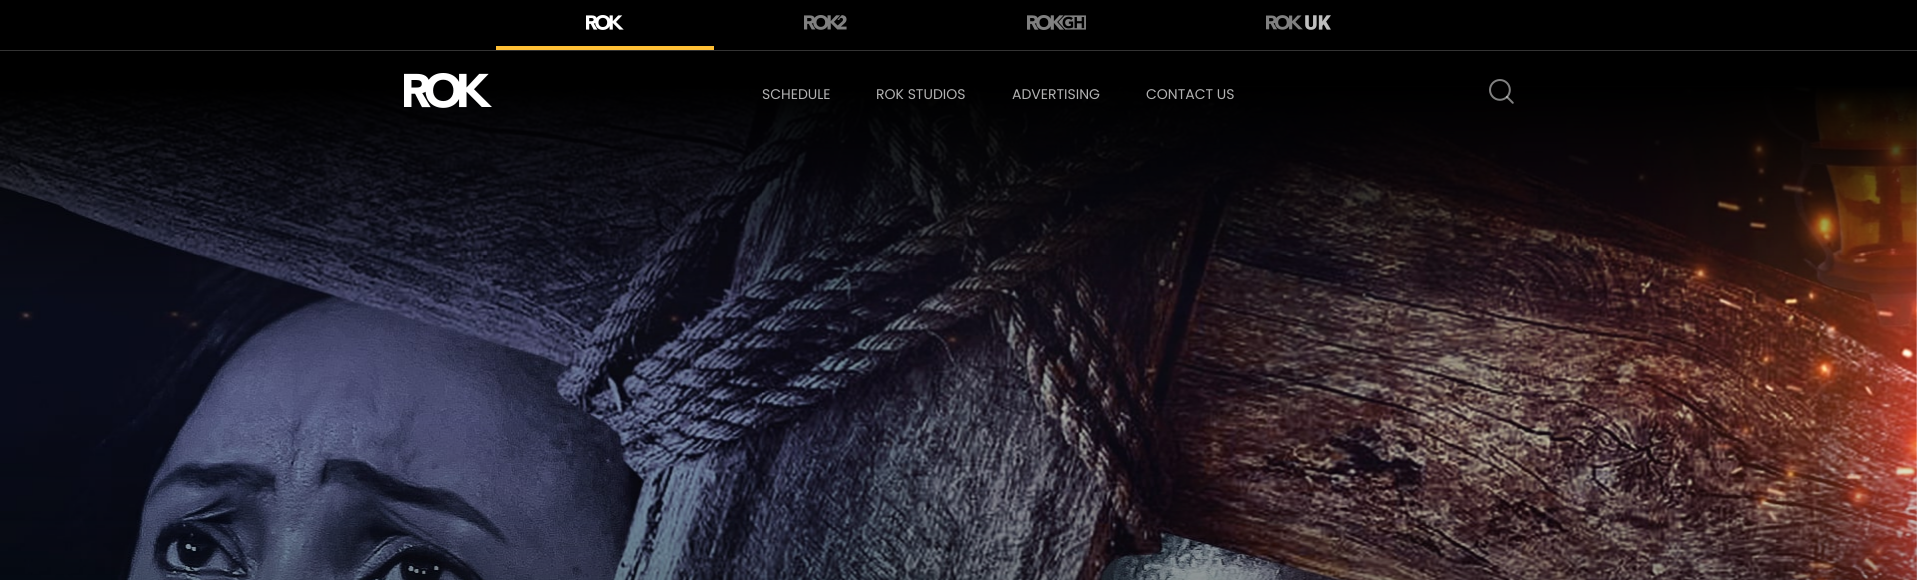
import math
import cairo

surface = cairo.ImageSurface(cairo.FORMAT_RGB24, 1917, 580)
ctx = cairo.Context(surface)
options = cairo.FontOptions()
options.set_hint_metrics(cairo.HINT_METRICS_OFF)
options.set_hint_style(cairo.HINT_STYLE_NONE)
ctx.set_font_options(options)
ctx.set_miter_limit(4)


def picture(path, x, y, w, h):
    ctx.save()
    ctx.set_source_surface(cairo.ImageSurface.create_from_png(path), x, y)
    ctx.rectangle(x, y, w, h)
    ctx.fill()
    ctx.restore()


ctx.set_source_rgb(1, 1, 1)
ctx.paint()
picture("img1.png", 0, 87, 1917, 493)
gradient = cairo.LinearGradient(958, 0, 959, 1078)
gradient.add_color_stop_rgba(0.08, 0, 0, 0, 1)
gradient.add_color_stop_rgba(0.28, 0, 0, 0, 0)
ctx.set_source(gradient)
ctx.rectangle(0, 0, 1917, 298)
ctx.fill()
gradient = cairo.LinearGradient(959, 216, 959, 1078)
gradient.add_color_stop_rgba(0.24, 0, 0, 0, 0.02)
gradient.add_color_stop_rgba(0.52, 0.059, 0.063, 0.063, 0.54)
gradient.add_color_stop_rgba(0.8, 0.039, 0.043, 0.051, 1)
ctx.set_source(gradient)
ctx.rectangle(0, 424, 1917, 156)
ctx.fill()
ctx.set_source_rgb(0.2, 0.2, 0.2)
ctx.rectangle(0, 50, 1917, 1)
ctx.fill()
ctx.set_source_rgb(1, 0.749, 0.208)
ctx.rectangle(496, 46, 218, 4)
ctx.fill()
picture("img2.png", 586, 15, 38, 15)
picture("img3.png", 804, 15, 43, 15)
picture("img4.png", 1027, 15, 59, 15)
picture("img5.png", 1266, 15, 65, 15)
picture("img6.png", 404, 73, 88, 35)
ctx.select_font_face("Poppins")
ctx.set_font_size(14)
ctx.set_source_rgb(0.702, 0.702, 0.702)
ctx.move_to(762, 99)
ctx.show_text("SCHEDULE")
ctx.move_to(876, 99)
ctx.show_text("ROK STUDIOS")
ctx.move_to(1012, 99)
ctx.show_text("ADVERTISING")
ctx.move_to(1146, 99)
ctx.show_text("CONTACT US")
picture("img7.png", 1489, 79, 25, 25)
surface.write_to_png("page.png")
